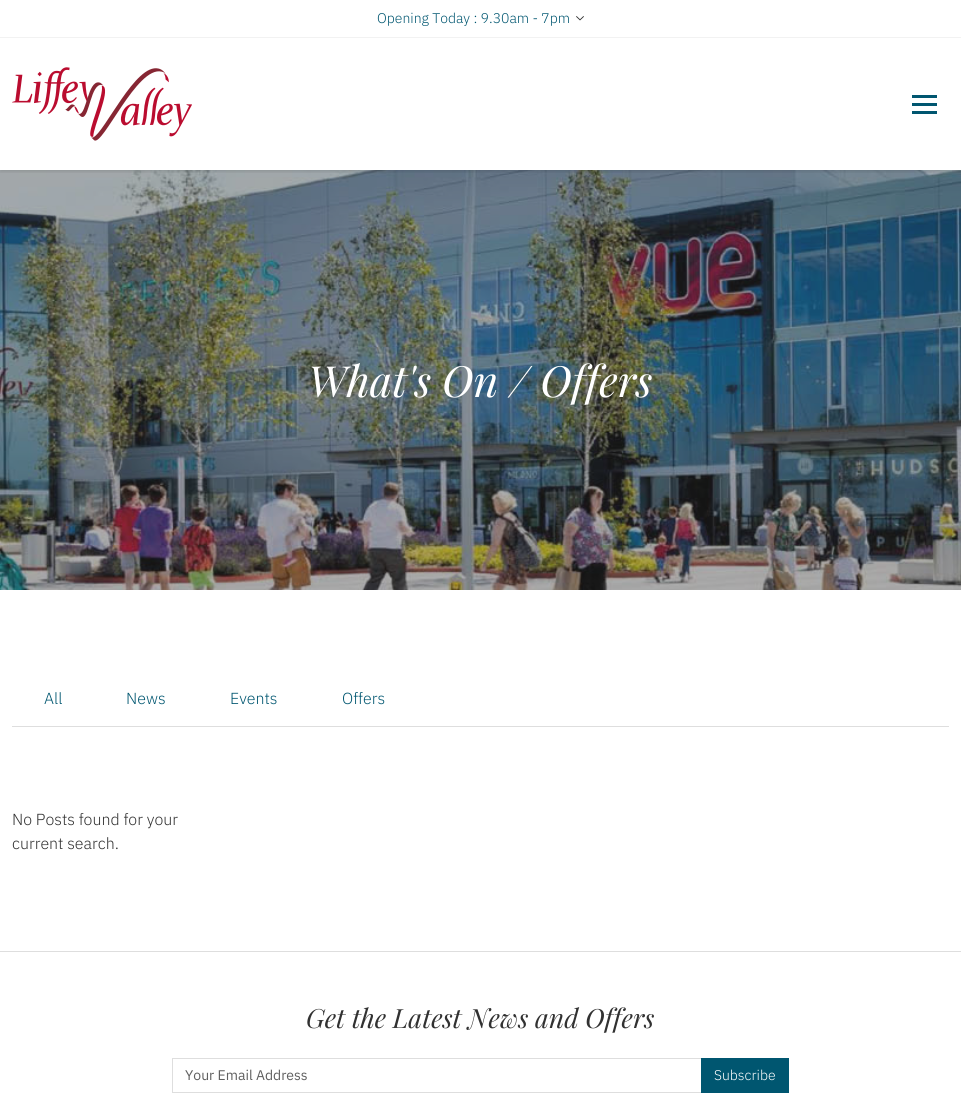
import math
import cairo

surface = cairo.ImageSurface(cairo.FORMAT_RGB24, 961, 1119)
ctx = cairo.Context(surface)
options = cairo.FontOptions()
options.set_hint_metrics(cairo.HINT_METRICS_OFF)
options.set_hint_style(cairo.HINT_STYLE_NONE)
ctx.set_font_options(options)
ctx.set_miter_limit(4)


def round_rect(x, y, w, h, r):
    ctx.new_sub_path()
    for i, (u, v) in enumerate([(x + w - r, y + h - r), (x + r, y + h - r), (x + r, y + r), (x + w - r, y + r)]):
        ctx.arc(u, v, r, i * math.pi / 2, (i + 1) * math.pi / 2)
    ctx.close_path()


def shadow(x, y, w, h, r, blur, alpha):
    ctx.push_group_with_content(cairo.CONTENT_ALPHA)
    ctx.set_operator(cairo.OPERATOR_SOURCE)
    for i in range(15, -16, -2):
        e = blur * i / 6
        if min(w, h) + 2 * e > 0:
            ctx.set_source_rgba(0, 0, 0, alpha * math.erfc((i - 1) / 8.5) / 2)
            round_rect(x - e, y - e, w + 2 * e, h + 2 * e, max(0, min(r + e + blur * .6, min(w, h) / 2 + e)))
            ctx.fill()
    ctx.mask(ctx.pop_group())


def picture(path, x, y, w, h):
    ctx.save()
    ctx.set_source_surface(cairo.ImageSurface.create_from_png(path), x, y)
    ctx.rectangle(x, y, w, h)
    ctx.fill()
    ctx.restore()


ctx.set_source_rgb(1, 1, 1)
ctx.paint()
picture("img3.png", 0, 170, 961, 420)
ctx.save()
ctx.rectangle(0, 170, 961, 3)
ctx.clip()
ctx.set_source_rgb(0, 0, 0)
shadow(0, 2, 961, 170, 0, 1.5, 0.1)
ctx.restore()
ctx.set_source_rgb(0.949, 0.949, 0.949)
ctx.rectangle(0, 37, 961, 1)
ctx.fill()
ctx.select_font_face("IBM Plex Sans Light")
ctx.set_font_size(14)
ctx.set_source_rgb(0, 0.337, 0.439)
ctx.move_to(377, 23)
ctx.show_text("Opening Today : 9.30am - 7pm")
picture("img1.png", 576, 16, 8, 5)
picture("img2.png", 12, 67, 180, 74)
ctx.rectangle(912, 95, 25, 3)
ctx.fill()
ctx.rectangle(912, 103, 25, 3)
ctx.fill()
ctx.rectangle(912, 111, 25, 3)
ctx.fill()
ctx.select_font_face("Playfair Display", cairo.FONT_SLANT_ITALIC)
ctx.set_font_size(43)
ctx.set_source_rgb(1, 1, 1)
ctx.move_to(308, 397)
ctx.show_text("What's On / Offers")
ctx.set_source_rgb(0.871, 0.871, 0.871)
ctx.rectangle(12, 726, 937, 1)
ctx.fill()
ctx.select_font_face("IBM Plex Sans Light")
ctx.set_font_size(16)
ctx.set_source_rgb(0, 0.337, 0.439)
ctx.move_to(44, 704)
ctx.show_text("All")
ctx.move_to(126, 704)
ctx.show_text("News")
ctx.move_to(230, 704)
ctx.show_text("Events")
ctx.move_to(342, 704)
ctx.show_text("Offers")
ctx.set_source_rgb(0.192, 0.192, 0.192)
ctx.move_to(12, 825)
ctx.show_text("No Posts found for your")
ctx.move_to(12, 849)
ctx.show_text("current search.")
ctx.set_source_rgb(0.871, 0.871, 0.871)
ctx.rectangle(0, 951, 961, 1)
ctx.fill()
ctx.select_font_face("Playfair Display", cairo.FONT_SLANT_ITALIC)
ctx.set_font_size(26.5)
ctx.set_source_rgb(0.192, 0.192, 0.192)
ctx.move_to(306, 1028)
ctx.show_text("Get the Latest News and Offers")
ctx.rectangle(172.5, 1058.5, 529, 34)
ctx.set_source_rgb(0.871, 0.871, 0.871)
ctx.set_line_width(1)
ctx.stroke()
ctx.select_font_face("IBM Plex Sans")
ctx.set_font_size(14)
ctx.set_source_rgb(0.373, 0.373, 0.373)
ctx.move_to(185, 1080)
ctx.show_text("Your Email Address")
ctx.set_source_rgb(0, 0.337, 0.439)
ctx.rectangle(701, 1058, 88, 35)
ctx.fill()
ctx.select_font_face("IBM Plex Sans Light")
ctx.set_source_rgb(1, 1, 1)
ctx.move_to(714, 1080)
ctx.show_text("Subscribe")
surface.write_to_png("page.png")
